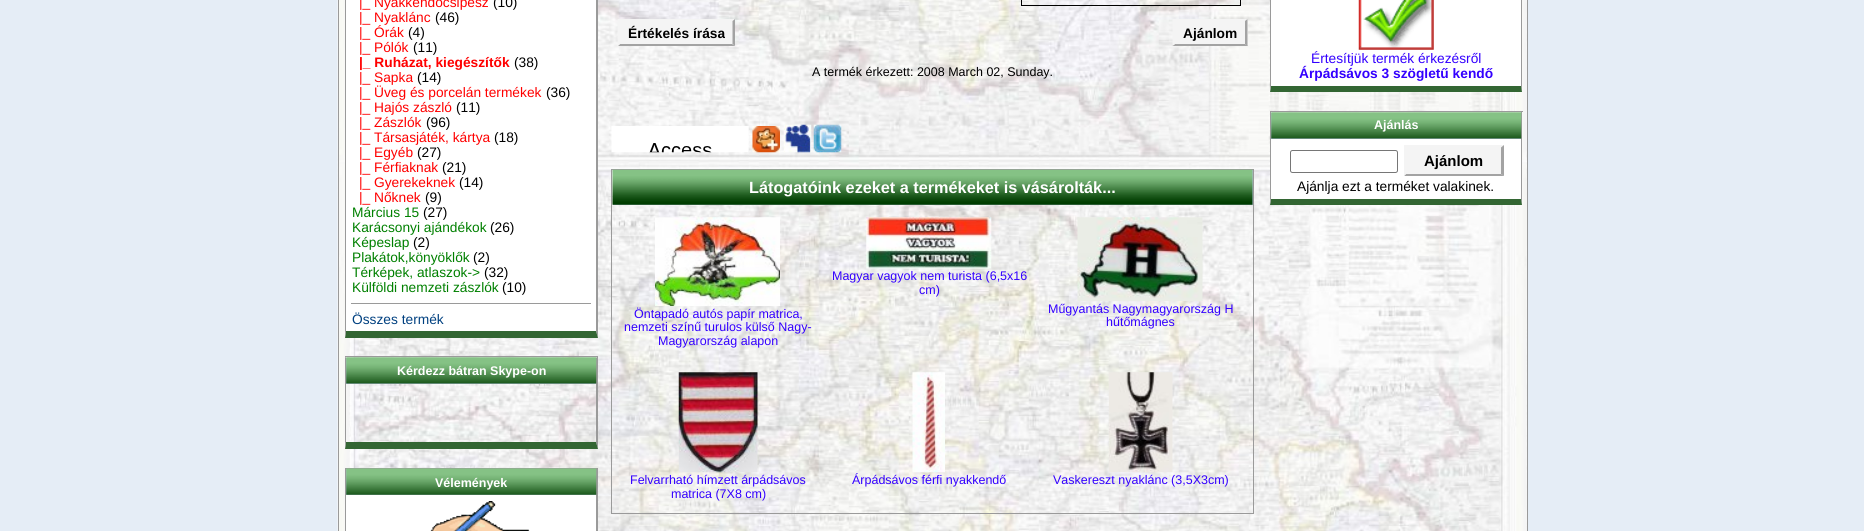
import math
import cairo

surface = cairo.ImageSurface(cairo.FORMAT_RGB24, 1864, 531)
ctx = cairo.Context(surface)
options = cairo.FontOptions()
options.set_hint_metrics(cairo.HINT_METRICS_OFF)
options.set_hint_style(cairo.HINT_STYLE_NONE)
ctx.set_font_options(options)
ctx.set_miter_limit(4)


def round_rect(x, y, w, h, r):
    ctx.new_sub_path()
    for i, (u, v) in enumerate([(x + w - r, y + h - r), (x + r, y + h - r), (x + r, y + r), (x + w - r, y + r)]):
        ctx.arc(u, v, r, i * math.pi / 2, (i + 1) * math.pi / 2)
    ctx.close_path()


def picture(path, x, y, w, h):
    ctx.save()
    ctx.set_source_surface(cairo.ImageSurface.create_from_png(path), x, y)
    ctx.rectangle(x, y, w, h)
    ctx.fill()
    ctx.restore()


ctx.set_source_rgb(0.898, 0.929, 0.961)
ctx.paint()
picture("img1.png", 337, 0, 1190, 531)
ctx.rectangle(338.5, -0.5, 1189, 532)
ctx.set_source_rgb(0.604, 0.604, 0.604)
ctx.set_line_width(1)
ctx.stroke()
ctx.new_path()
ctx.move_to(598, -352)
ctx.line_to(598, 338)
ctx.line_to(596, 331)
ctx.line_to(596, -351)
ctx.close_path()
ctx.fill()
ctx.set_source_rgb(0.2, 0.4, 0.2)
ctx.new_path()
ctx.move_to(598, 338)
ctx.line_to(345, 338)
ctx.line_to(346, 331)
ctx.line_to(596, 331)
ctx.close_path()
ctx.fill()
ctx.set_source_rgb(0.604, 0.604, 0.604)
ctx.new_path()
ctx.move_to(345, 338)
ctx.line_to(345, -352)
ctx.line_to(346, -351)
ctx.line_to(346, 331)
ctx.close_path()
ctx.fill()
ctx.set_source_rgb(1, 1, 1)
ctx.rectangle(346, 0, 250, 331)
ctx.fill()
ctx.select_font_face("Liberation Sans")
ctx.set_font_size(13.75)
ctx.set_source_rgb(1, 0, 0)
ctx.move_to(359, 7)
ctx.show_text("|_ Nyakkendőcsipesz")
ctx.set_source_rgb(0, 0, 0)
ctx.move_to(493, 7)
ctx.show_text("(10)")
ctx.set_source_rgb(1, 0, 0)
ctx.move_to(359, 22)
ctx.show_text("|_ Nyaklánc")
ctx.set_source_rgb(0, 0, 0)
ctx.move_to(435, 22)
ctx.show_text("(46)")
ctx.set_source_rgb(1, 0, 0)
ctx.move_to(359, 37)
ctx.show_text("|_ Órák")
ctx.set_source_rgb(0, 0, 0)
ctx.move_to(408, 37)
ctx.show_text("(4)")
ctx.set_source_rgb(1, 0, 0)
ctx.move_to(359, 52)
ctx.show_text("|_ Pólók")
ctx.set_source_rgb(0, 0, 0)
ctx.move_to(413, 52)
ctx.show_text("(11)")
ctx.select_font_face("Liberation Sans", cairo.FONT_SLANT_NORMAL, cairo.FONT_WEIGHT_BOLD)
ctx.set_source_rgb(1, 0, 0)
ctx.move_to(359, 67)
ctx.show_text("|_ Ruházat, kiegészítők")
ctx.select_font_face("Liberation Sans")
ctx.set_source_rgb(0, 0, 0)
ctx.move_to(514, 67)
ctx.show_text("(38)")
ctx.set_source_rgb(1, 0, 0)
ctx.move_to(359, 82)
ctx.show_text("|_ Sapka")
ctx.set_source_rgb(0, 0, 0)
ctx.move_to(417, 82)
ctx.show_text("(14)")
ctx.set_source_rgb(1, 0, 0)
ctx.move_to(359, 97)
ctx.show_text("|_ Üveg és porcelán termékek")
ctx.set_source_rgb(0, 0, 0)
ctx.move_to(546, 97)
ctx.show_text("(36)")
ctx.set_source_rgb(1, 0, 0)
ctx.move_to(359, 112)
ctx.show_text("|_ Hajós zászló")
ctx.set_source_rgb(0, 0, 0)
ctx.move_to(456, 112)
ctx.show_text("(11)")
ctx.set_source_rgb(1, 0, 0)
ctx.move_to(359, 127)
ctx.show_text("|_ Zászlók")
ctx.set_source_rgb(0, 0, 0)
ctx.move_to(426, 127)
ctx.show_text("(96)")
ctx.set_source_rgb(1, 0, 0)
ctx.move_to(359, 142)
ctx.show_text("|_ Társasjáték, kártya")
ctx.set_source_rgb(0, 0, 0)
ctx.move_to(494, 142)
ctx.show_text("(18)")
ctx.set_source_rgb(1, 0, 0)
ctx.move_to(359, 157)
ctx.show_text("|_ Egyéb")
ctx.set_source_rgb(0, 0, 0)
ctx.move_to(417, 157)
ctx.show_text("(27)")
ctx.set_source_rgb(1, 0, 0)
ctx.move_to(359, 172)
ctx.show_text("|_ Férfiaknak")
ctx.set_source_rgb(0, 0, 0)
ctx.move_to(442, 172)
ctx.show_text("(21)")
ctx.set_source_rgb(1, 0, 0)
ctx.move_to(359, 187)
ctx.show_text("|_ Gyerekeknek")
ctx.set_source_rgb(0, 0, 0)
ctx.move_to(459, 187)
ctx.show_text("(14)")
ctx.set_source_rgb(1, 0, 0)
ctx.move_to(359, 202)
ctx.show_text("|_ Nőknek")
ctx.set_source_rgb(0, 0, 0)
ctx.move_to(425, 202)
ctx.show_text("(9)")
ctx.set_source_rgb(0, 0.502, 0)
ctx.move_to(352, 217)
ctx.show_text("Március 15")
ctx.set_source_rgb(0, 0, 0)
ctx.move_to(423, 217)
ctx.show_text("(27)")
ctx.set_source_rgb(0, 0.502, 0)
ctx.move_to(352, 232)
ctx.show_text("Karácsonyi ajándékok")
ctx.set_source_rgb(0, 0, 0)
ctx.move_to(490, 232)
ctx.show_text("(26)")
ctx.set_source_rgb(0, 0.502, 0)
ctx.move_to(352, 247)
ctx.show_text("Képeslap")
ctx.set_source_rgb(0, 0, 0)
ctx.move_to(413, 247)
ctx.show_text("(2)")
ctx.set_source_rgb(0, 0.502, 0)
ctx.move_to(352, 262)
ctx.show_text("Plakátok,könyöklők")
ctx.set_source_rgb(0, 0, 0)
ctx.move_to(473, 262)
ctx.show_text("(2)")
ctx.set_source_rgb(0, 0.502, 0)
ctx.move_to(352, 277)
ctx.show_text("Térképek, atlaszok->")
ctx.set_source_rgb(0, 0, 0)
ctx.move_to(484, 277)
ctx.show_text("(32)")
ctx.set_source_rgb(0, 0.502, 0)
ctx.move_to(352, 292)
ctx.show_text("Külföldi nemzeti zászlók")
ctx.set_source_rgb(0, 0, 0)
ctx.move_to(502, 292)
ctx.show_text("(10)")
ctx.set_source_rgb(0.604, 0.604, 0.604)
ctx.rectangle(351, 303, 240, 1)
ctx.fill()
ctx.set_source_rgb(0, 0.251, 0.502)
ctx.move_to(352, 324)
ctx.show_text("Összes termék")
ctx.set_source_rgb(0.604, 0.604, 0.604)
ctx.rectangle(345, 356, 253, 1)
ctx.fill()
ctx.new_path()
ctx.move_to(598, 356)
ctx.line_to(598, 449)
ctx.line_to(596, 442)
ctx.line_to(596, 358)
ctx.close_path()
ctx.fill()
ctx.set_source_rgb(0.2, 0.4, 0.2)
ctx.new_path()
ctx.move_to(598, 449)
ctx.line_to(345, 449)
ctx.line_to(346, 442)
ctx.line_to(596, 442)
ctx.close_path()
ctx.fill()
ctx.set_source_rgb(0.604, 0.604, 0.604)
ctx.new_path()
ctx.move_to(345, 449)
ctx.line_to(345, 356)
ctx.line_to(346, 358)
ctx.line_to(346, 442)
ctx.close_path()
ctx.fill()
ctx.set_source_rgb(0.671, 0.733, 0.827)
ctx.rectangle(346, 358, 250, 26)
ctx.fill()
picture("img2.png", 346, 357, 251, 27)
ctx.select_font_face("Liberation Sans", cairo.FONT_SLANT_NORMAL, cairo.FONT_WEIGHT_BOLD)
ctx.set_font_size(12.5)
ctx.set_source_rgb(1, 1, 1)
ctx.move_to(397, 375)
ctx.show_text("Kérdezz bátran Skype-on")
ctx.set_source_rgb(0.604, 0.604, 0.604)
ctx.rectangle(345, 468, 253, 1)
ctx.fill()
ctx.new_path()
ctx.move_to(598, 468)
ctx.line_to(598, 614)
ctx.line_to(596, 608)
ctx.line_to(596, 469)
ctx.close_path()
ctx.fill()
ctx.new_path()
ctx.move_to(345, 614)
ctx.line_to(345, 468)
ctx.line_to(346, 469)
ctx.line_to(346, 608)
ctx.close_path()
ctx.fill()
ctx.set_source_rgb(0.671, 0.733, 0.827)
ctx.rectangle(346, 469, 250, 26)
ctx.fill()
picture("img3.png", 346, 468, 251, 27)
ctx.set_source_rgb(1, 1, 1)
ctx.move_to(435, 487)
ctx.show_text("Vélemények")
ctx.rectangle(346, 495, 250, 36)
ctx.fill()
picture("img4.png", 430, 501, 100, 30)
ctx.rectangle(1021.5, -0.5, 219, 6)
ctx.set_source_rgb(0, 0, 0)
ctx.stroke()
ctx.set_source_rgb(0.957, 0.957, 0.957)
ctx.rectangle(618, 19, 117, 27)
ctx.fill()
ctx.set_font_size(13.75)
ctx.set_source_rgb(0, 0, 0)
ctx.move_to(628, 38)
ctx.show_text("Értékelés írása")
ctx.set_source_rgb(0.639, 0.639, 0.639)
ctx.new_path()
ctx.move_to(735, 19)
ctx.line_to(735, 46)
ctx.line_to(732.5, 44)
ctx.line_to(732.5, 21)
ctx.close_path()
ctx.fill()
ctx.new_path()
ctx.move_to(735, 46)
ctx.line_to(618, 46)
ctx.line_to(620, 44)
ctx.line_to(732, 44)
ctx.close_path()
ctx.fill()
ctx.set_source_rgb(0.957, 0.957, 0.957)
ctx.new_path()
ctx.move_to(617.5, 46)
ctx.line_to(617.5, 19)
ctx.line_to(620, 21)
ctx.line_to(620, 44)
ctx.close_path()
ctx.fill()
ctx.rectangle(1173, 19, 75, 27)
ctx.fill()
ctx.set_source_rgb(0, 0, 0)
ctx.move_to(1183, 38)
ctx.show_text("Ajánlom")
ctx.set_source_rgb(0.639, 0.639, 0.639)
ctx.new_path()
ctx.move_to(1247.5, 19)
ctx.line_to(1247.5, 46)
ctx.line_to(1245, 44)
ctx.line_to(1245, 21)
ctx.close_path()
ctx.fill()
ctx.new_path()
ctx.move_to(1248, 46)
ctx.line_to(1172, 46)
ctx.line_to(1175, 44)
ctx.line_to(1245, 44)
ctx.close_path()
ctx.fill()
ctx.set_source_rgb(0.957, 0.957, 0.957)
ctx.new_path()
ctx.move_to(1172.5, 46)
ctx.line_to(1172.5, 19)
ctx.line_to(1175, 21)
ctx.line_to(1175, 44)
ctx.close_path()
ctx.fill()
ctx.select_font_face("Liberation Sans")
ctx.set_font_size(12.5)
ctx.set_source_rgb(0, 0, 0)
ctx.move_to(812, 76)
ctx.show_text("A termék érkezett: 2008 March 02, Sunday.")
picture("img5.png", 611, 126, 138, 27)
picture("img6.png", 752, 126, 28, 27)
picture("img7.png", 783, 124, 29, 29)
picture("img8.png", 813, 124, 29, 29)
ctx.rectangle(611.5, 169.5, 642, 344)
ctx.set_source_rgb(0.604, 0.604, 0.604)
ctx.stroke()
ctx.set_source_rgb(0.671, 0.733, 0.827)
ctx.rectangle(613, 170, 640, 35)
ctx.fill()
picture("img9.png", 612, 169, 641, 36)
ctx.select_font_face("Liberation Sans", cairo.FONT_SLANT_NORMAL, cairo.FONT_WEIGHT_BOLD)
ctx.set_font_size(16.25)
ctx.set_source_rgb(1, 1, 1)
ctx.move_to(749, 193)
ctx.show_text("Látogatóink ezeket a termékeket is vásárolták...")
picture("img10.png", 866, 217, 126, 52)
ctx.select_font_face("Liberation Sans")
ctx.set_font_size(12.5)
ctx.set_source_rgb(0.2, 0, 1)
ctx.move_to(832, 280)
ctx.show_text("Magyar vagyok nem turista (6,5x16")
ctx.move_to(919, 294)
ctx.show_text("cm)")
picture("img11.png", 655, 217, 125, 89)
ctx.move_to(634, 318)
ctx.show_text("Öntapadó autós papír matrica,")
ctx.move_to(624, 331)
ctx.show_text("nemzeti színű turulos külső Nagy-")
ctx.move_to(658, 345)
ctx.show_text("Magyarország alapon")
picture("img12.png", 1077, 217, 126, 84)
ctx.move_to(1048, 313)
ctx.show_text("Műgyantás Nagymagyarország H")
ctx.move_to(1106, 326)
ctx.show_text("hűtőmágnes")
picture("img13.png", 678, 372, 80, 101)
ctx.move_to(630, 484)
ctx.show_text("Felvarrható hímzett árpádsávos")
ctx.move_to(671, 498)
ctx.show_text("matrica (7X8 cm)")
picture("img14.png", 912, 372, 33, 101)
ctx.move_to(852, 484)
ctx.show_text("Árpádsávos férfi nyakkendő")
picture("img15.png", 1108, 372, 65, 101)
ctx.move_to(1053, 484)
ctx.show_text("Vaskereszt nyaklánc (3,5X3cm)")
ctx.set_source_rgb(0.604, 0.604, 0.604)
ctx.new_path()
ctx.move_to(1522, -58)
ctx.line_to(1522, 92)
ctx.line_to(1521, 86)
ctx.line_to(1521, -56)
ctx.close_path()
ctx.fill()
ctx.set_source_rgb(0.2, 0.4, 0.2)
ctx.new_path()
ctx.move_to(1522, 92)
ctx.line_to(1270, 92)
ctx.line_to(1271, 86)
ctx.line_to(1521, 86)
ctx.close_path()
ctx.fill()
ctx.set_source_rgb(0.604, 0.604, 0.604)
ctx.new_path()
ctx.move_to(1270, 92)
ctx.line_to(1270, -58)
ctx.line_to(1271, -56)
ctx.line_to(1271, 86)
ctx.close_path()
ctx.fill()
ctx.set_source_rgb(1, 1, 1)
ctx.rectangle(1271, 0, 250, 86)
ctx.fill()
picture("img16.png", 1358, 0, 76, 50)
ctx.set_font_size(13.75)
ctx.set_source_rgb(0.2, 0, 1)
ctx.move_to(1311, 63)
ctx.show_text("Értesítjük termék érkezésről")
ctx.select_font_face("Liberation Sans", cairo.FONT_SLANT_NORMAL, cairo.FONT_WEIGHT_BOLD)
ctx.move_to(1299, 78)
ctx.show_text("Árpádsávos 3 szögletű kendő")
ctx.set_source_rgb(0.604, 0.604, 0.604)
ctx.rectangle(1270, 111, 253, 1)
ctx.fill()
ctx.new_path()
ctx.move_to(1522, 111)
ctx.line_to(1522, 205)
ctx.line_to(1521, 199)
ctx.line_to(1521, 112)
ctx.close_path()
ctx.fill()
ctx.set_source_rgb(0.2, 0.4, 0.2)
ctx.new_path()
ctx.move_to(1522, 205)
ctx.line_to(1270, 205)
ctx.line_to(1271, 199)
ctx.line_to(1521, 199)
ctx.close_path()
ctx.fill()
ctx.set_source_rgb(0.604, 0.604, 0.604)
ctx.new_path()
ctx.move_to(1270, 205)
ctx.line_to(1270, 111)
ctx.line_to(1271, 112)
ctx.line_to(1271, 199)
ctx.close_path()
ctx.fill()
ctx.set_source_rgb(0.671, 0.733, 0.827)
ctx.rectangle(1271, 113, 250, 26)
ctx.fill()
picture("img17.png", 1271, 112, 251, 27)
ctx.set_font_size(12.5)
ctx.set_source_rgb(1, 1, 1)
ctx.move_to(1374, 129)
ctx.show_text("Ajánlás")
ctx.rectangle(1271, 139, 250, 60)
ctx.fill()
round_rect(1290.5, 150.5, 107, 22, 2)
ctx.set_source_rgb(0.463, 0.463, 0.463)
ctx.stroke()
ctx.set_source_rgb(0.957, 0.957, 0.957)
ctx.rectangle(1404, 145, 100, 31)
ctx.fill()
ctx.set_source_rgb(0.639, 0.639, 0.639)
ctx.new_path()
ctx.move_to(1504, 145)
ctx.line_to(1504, 176)
ctx.line_to(1501, 174)
ctx.line_to(1501, 147.5)
ctx.close_path()
ctx.fill()
ctx.new_path()
ctx.move_to(1504, 176)
ctx.line_to(1404, 176)
ctx.line_to(1406, 174)
ctx.line_to(1501, 174)
ctx.close_path()
ctx.fill()
ctx.set_source_rgb(0.957, 0.957, 0.957)
ctx.new_path()
ctx.move_to(1404, 176)
ctx.line_to(1404, 145)
ctx.line_to(1406, 147.5)
ctx.line_to(1406, 174)
ctx.close_path()
ctx.fill()
ctx.set_font_size(15)
ctx.set_source_rgb(0, 0, 0)
ctx.move_to(1424, 166)
ctx.show_text("Ajánlom")
ctx.select_font_face("Liberation Sans")
ctx.set_font_size(13.75)
ctx.move_to(1297, 191)
ctx.show_text("Ajánlja ezt a terméket valakinek.")
surface.write_to_png("page.png")
